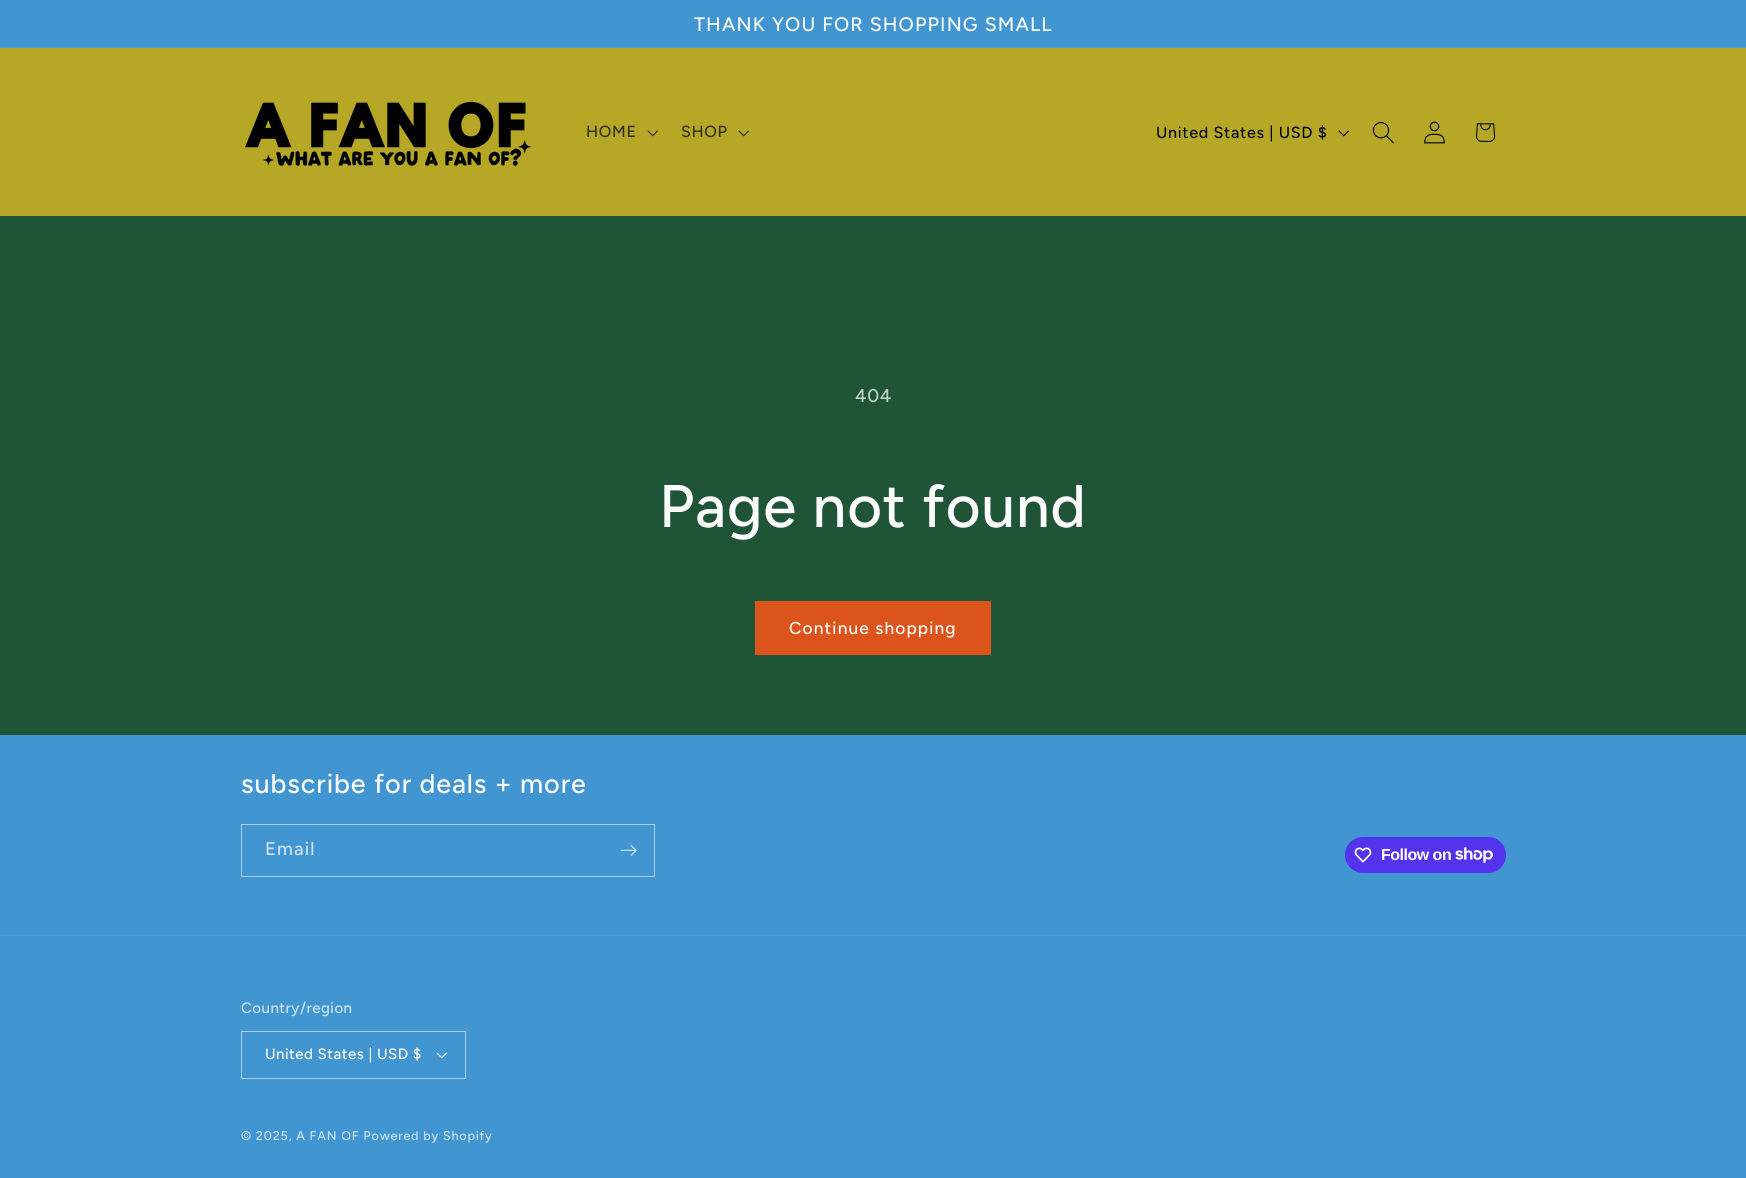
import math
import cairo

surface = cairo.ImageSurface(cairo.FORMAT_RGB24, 1746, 1178)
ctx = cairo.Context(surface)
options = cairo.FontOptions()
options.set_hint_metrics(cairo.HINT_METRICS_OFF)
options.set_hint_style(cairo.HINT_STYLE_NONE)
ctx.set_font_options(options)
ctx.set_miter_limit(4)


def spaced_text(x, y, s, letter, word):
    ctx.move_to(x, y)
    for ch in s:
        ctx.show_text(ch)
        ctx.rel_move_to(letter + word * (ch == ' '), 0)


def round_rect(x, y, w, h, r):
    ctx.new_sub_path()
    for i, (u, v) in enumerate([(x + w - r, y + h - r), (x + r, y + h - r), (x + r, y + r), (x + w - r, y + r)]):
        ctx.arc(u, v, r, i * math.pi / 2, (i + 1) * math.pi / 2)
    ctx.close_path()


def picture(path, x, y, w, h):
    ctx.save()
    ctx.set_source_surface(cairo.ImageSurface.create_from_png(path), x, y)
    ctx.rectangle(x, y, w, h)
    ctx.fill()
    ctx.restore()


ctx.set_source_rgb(0.122, 0.329, 0.212)
ctx.paint()
ctx.set_source_rgb(0.255, 0.588, 0.824)
ctx.rectangle(0, 0, 1746, 47)
ctx.fill()
ctx.set_source_rgb(0.314, 0.62, 0.835)
ctx.rectangle(0, 47, 1746, 1)
ctx.fill()
ctx.select_font_face("Figtree Medium")
ctx.set_font_size(19.5)
ctx.set_source_rgb(0.988, 0.988, 0.988)
spaced_text(694, 31, "THANK YOU FOR SHOPPING SMALL", 1.15, 0)
ctx.set_source_rgb(0.714, 0.655, 0.149)
ctx.rectangle(0, 48, 1746, 168)
ctx.fill()
picture("img1.png", 245, 101, 287, 65)
ctx.set_font_size(16.1)
ctx.set_source_rgb(0.184, 0.192, 0.09)
spaced_text(586, 137, "HOME", 0.7, 0)
picture("img2.png", 647, 130, 11, 7)
spaced_text(681, 137, "SHOP", 0.7, 0)
picture("img2.png", 738, 130, 11, 7)
ctx.set_source_rgb(0.008, 0.035, 0.071)
spaced_text(1156, 138, "United States | USD $", 0.7, 0)
picture("img3.png", 1338, 130, 11, 7)
picture("img4.png", 1372, 122, 22, 22)
picture("img5.png", 1424, 121, 21, 23)
picture("img6.png", 1476, 123, 20, 19)
ctx.set_font_size(18.5)
ctx.set_source_rgb(0.773, 0.824, 0.796)
spaced_text(855, 402, "404", 0.7, 0)
ctx.set_font_size(60)
ctx.set_source_rgb(0.988, 0.988, 0.988)
spaced_text(659, 527, "Page not found", 0.9, 0)
ctx.set_source_rgb(0.859, 0.329, 0.106)
ctx.rectangle(755, 601, 236, 54)
ctx.fill()
ctx.set_font_size(17.25)
ctx.set_source_rgb(0.988, 0.988, 0.988)
spaced_text(789, 634, "Continue shopping", 1.15, 0)
ctx.set_source_rgb(0.255, 0.588, 0.824)
ctx.rectangle(0, 735, 1746, 443)
ctx.fill()
ctx.set_font_size(27)
ctx.set_source_rgb(0.988, 0.988, 0.988)
spaced_text(241, 793, "subscribe for deals + more", 0.9, 0)
ctx.rectangle(241.5, 824.5, 413, 52)
ctx.set_source_rgb(0.659, 0.808, 0.914)
ctx.set_line_width(1)
ctx.stroke()
ctx.set_font_size(18.5)
ctx.set_source_rgb(0.804, 0.89, 0.949)
spaced_text(265, 855, "Email", 1.15, 0)
picture("img7.png", 620, 844, 17, 12)
ctx.set_source_rgb(0.329, 0.2, 0.922)
round_rect(1345, 837, 161, 36, 18)
ctx.fill()
picture("img8.png", 1354, 847, 18, 16)
ctx.select_font_face("Liberation Sans", cairo.FONT_SLANT_NORMAL, cairo.FONT_WEIGHT_BOLD)
ctx.set_font_size(16)
ctx.set_source_rgb(0.988, 0.988, 0.988)
spaced_text(1381, 860, "Follow on", -0.5, 0)
picture("img9.png", 1455, 847, 38, 16)
ctx.set_source_rgb(0.314, 0.62, 0.835)
ctx.rectangle(0, 935, 1746, 1)
ctx.fill()
ctx.select_font_face("Figtree Medium")
ctx.set_font_size(15)
ctx.set_source_rgb(0.804, 0.89, 0.949)
spaced_text(241, 1013, "Country/region", 0.5, 0)
picture("img10.png", 436, 1052, 11, 7)
ctx.rectangle(241.5, 1031.5, 224, 47)
ctx.set_source_rgb(0.659, 0.808, 0.914)
ctx.stroke()
ctx.set_source_rgb(0.988, 0.988, 0.988)
spaced_text(265, 1059, "United States | USD $", 0.5, 0)
ctx.set_font_size(12.6)
ctx.set_source_rgb(0.804, 0.89, 0.949)
spaced_text(241, 1140, "© 2025, A FAN OF Powered by Shopify", 0.8, 0)
surface.write_to_png("page.png")
